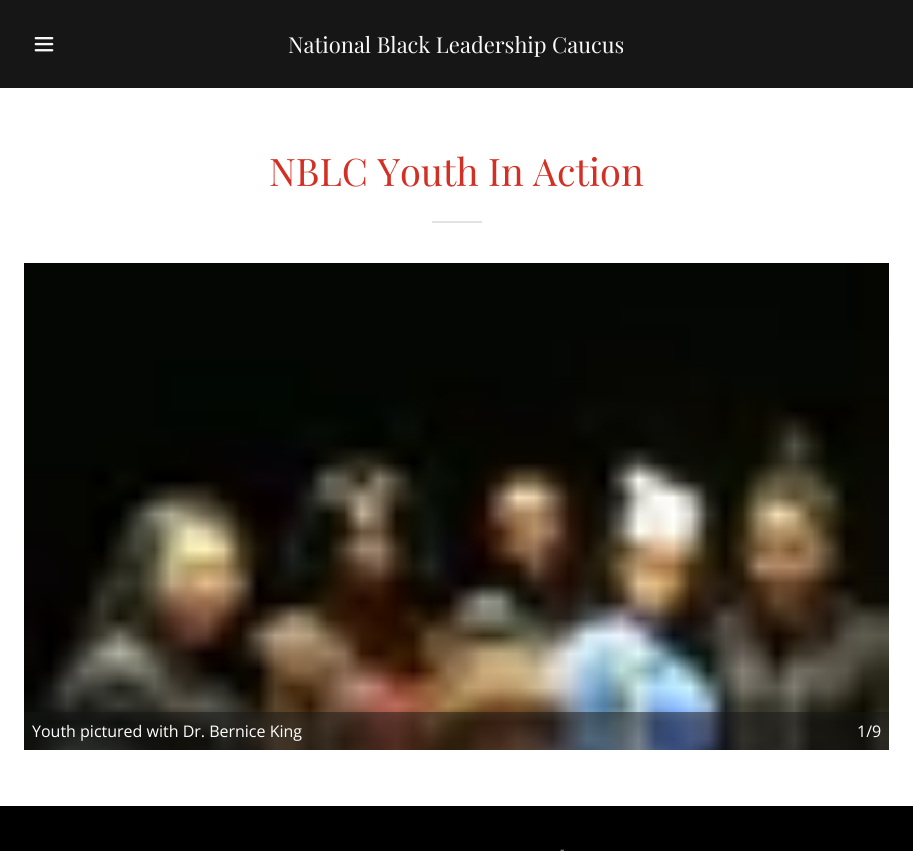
import math
import cairo

surface = cairo.ImageSurface(cairo.FORMAT_RGB24, 913, 851)
ctx = cairo.Context(surface)
options = cairo.FontOptions()
options.set_hint_metrics(cairo.HINT_METRICS_OFF)
options.set_hint_style(cairo.HINT_STYLE_NONE)
ctx.set_font_options(options)
ctx.set_miter_limit(4)


def picture(path, x, y, w, h):
    ctx.save()
    ctx.set_source_surface(cairo.ImageSurface.create_from_png(path), x, y)
    ctx.rectangle(x, y, w, h)
    ctx.fill()
    ctx.restore()


ctx.set_source_rgb(0, 0, 0)
ctx.paint()
ctx.set_source_rgb(0.086, 0.086, 0.086)
ctx.rectangle(0, 0, 913, 88)
ctx.fill()
picture("img1.png", 34, 37, 20, 15)
ctx.select_font_face("Playfair Display")
ctx.set_font_size(22)
ctx.set_source_rgb(0.969, 0.969, 0.969)
ctx.move_to(288, 53)
ctx.show_text("National Black Leadership Caucus")
ctx.set_source_rgb(1, 1, 1)
ctx.rectangle(0, 88, 913, 718)
ctx.fill()
ctx.set_font_size(38)
ctx.set_source_rgb(0.824, 0.184, 0.145)
ctx.move_to(269, 186)
ctx.show_text("NBLC Youth In Action")
ctx.set_source_rgb(0.886, 0.886, 0.886)
ctx.rectangle(432, 221, 50, 2)
ctx.fill()
picture("img2.png", 24, 263, 865, 487)
ctx.set_source_rgba(0.086, 0.086, 0.086, 0.5)
ctx.rectangle(24, 712, 825, 38)
ctx.fill()
ctx.select_font_face("Open Sans")
ctx.set_font_size(16)
ctx.set_source_rgb(1, 1, 1)
ctx.move_to(32, 737)
ctx.show_text("Youth pictured with Dr. Bernice King")
ctx.set_source_rgba(0.086, 0.086, 0.086, 0.5)
ctx.rectangle(849, 712, 40, 38)
ctx.fill()
ctx.set_source_rgb(1, 1, 1)
ctx.move_to(857, 737)
ctx.show_text("1/9")
ctx.set_font_size(14)
ctx.set_source_rgb(0.588, 0.588, 0.588)
ctx.move_to(560, 854)
ctx.show_text("-")
surface.write_to_png("page.png")
